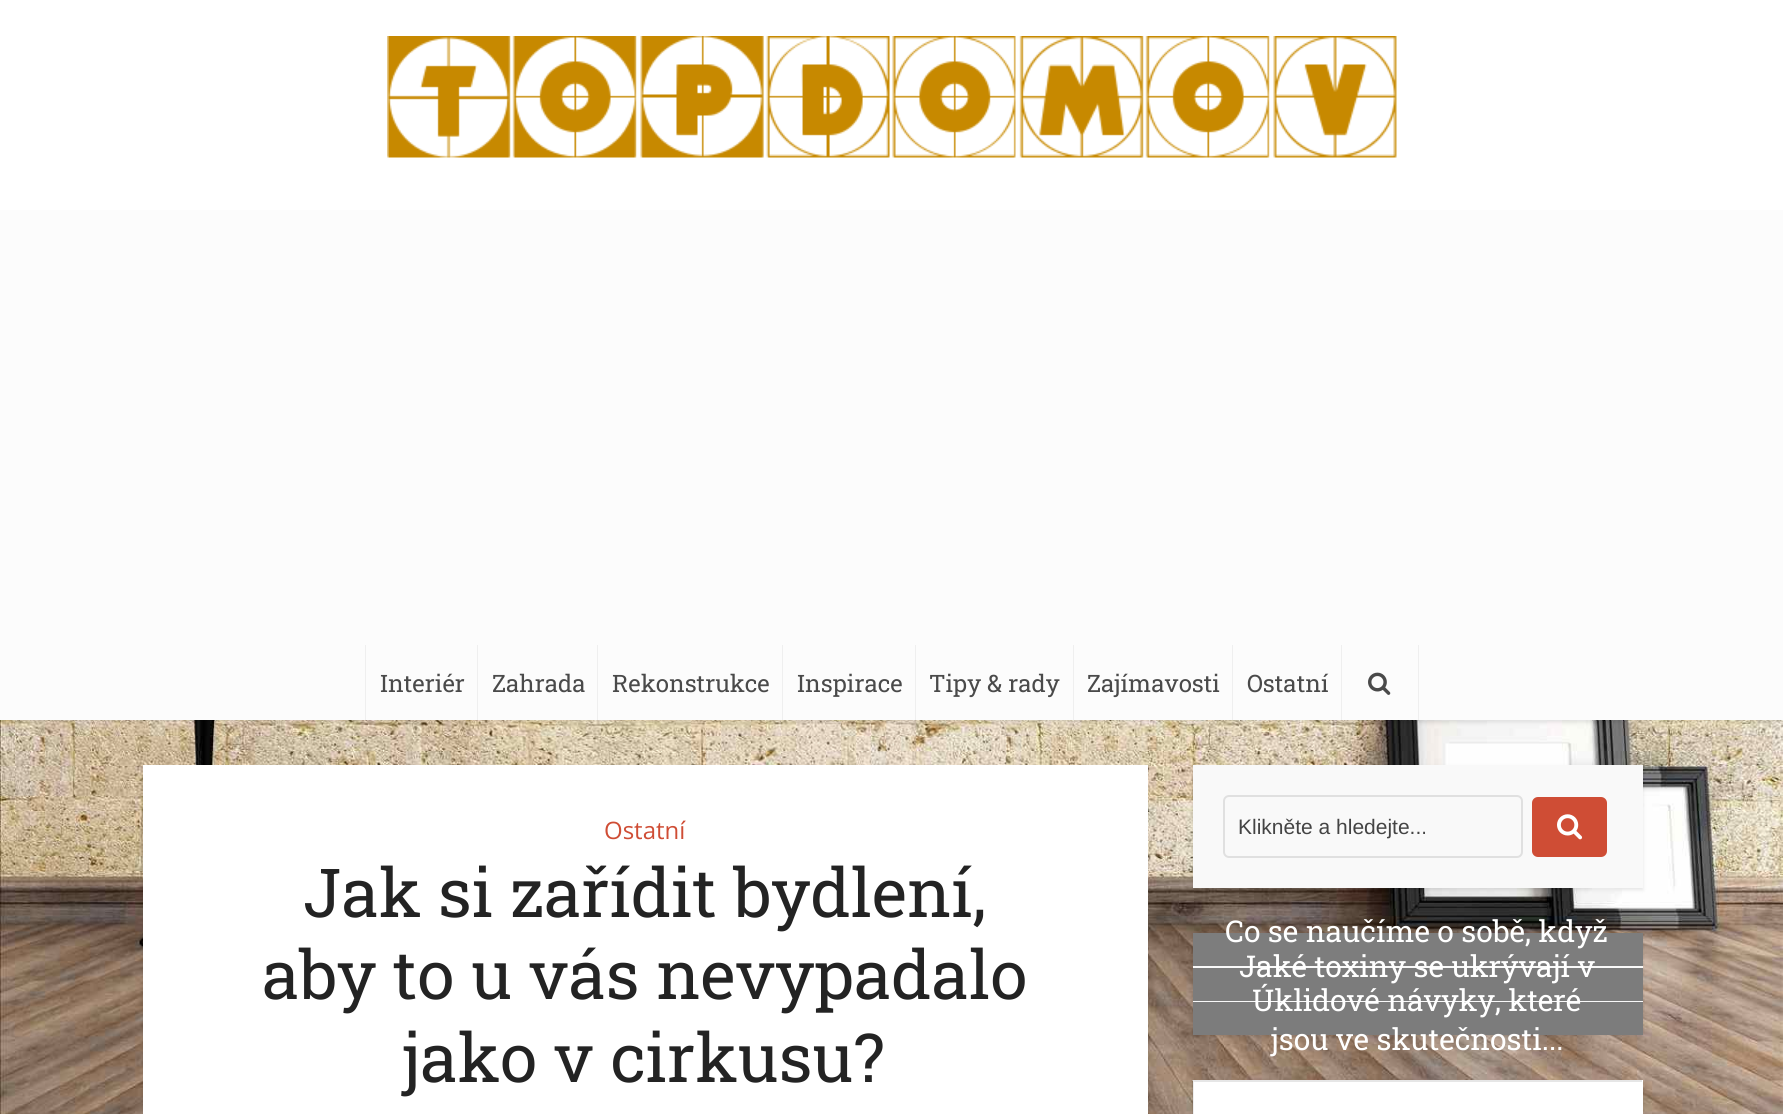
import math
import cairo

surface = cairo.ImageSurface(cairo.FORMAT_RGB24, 1783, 1114)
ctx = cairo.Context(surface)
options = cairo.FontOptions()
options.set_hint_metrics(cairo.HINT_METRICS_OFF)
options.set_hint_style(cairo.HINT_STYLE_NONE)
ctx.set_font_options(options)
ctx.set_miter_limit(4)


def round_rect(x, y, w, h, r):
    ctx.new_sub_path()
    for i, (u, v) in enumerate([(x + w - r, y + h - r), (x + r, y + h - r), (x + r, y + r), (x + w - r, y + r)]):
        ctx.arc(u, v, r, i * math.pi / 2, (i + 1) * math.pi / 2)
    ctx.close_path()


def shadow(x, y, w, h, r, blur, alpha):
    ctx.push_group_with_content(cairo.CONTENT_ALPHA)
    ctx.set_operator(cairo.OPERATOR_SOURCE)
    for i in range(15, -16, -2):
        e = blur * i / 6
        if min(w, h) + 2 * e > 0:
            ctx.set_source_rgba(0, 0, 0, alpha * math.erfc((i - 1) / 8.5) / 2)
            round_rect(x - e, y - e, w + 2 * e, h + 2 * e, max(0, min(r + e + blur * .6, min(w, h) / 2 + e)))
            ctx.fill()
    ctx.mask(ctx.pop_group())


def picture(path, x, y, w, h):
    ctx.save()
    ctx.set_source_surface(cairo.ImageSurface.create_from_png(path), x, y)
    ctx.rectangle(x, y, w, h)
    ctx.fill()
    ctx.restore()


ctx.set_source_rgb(1, 1, 1)
ctx.paint()
picture("img1.png", 0, 720, 1783, 394)
ctx.set_source_rgb(0, 0, 0)
shadow(0, 2, 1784, 720, 0, 2, 0.1)
ctx.set_source_rgb(1, 1, 1)
ctx.rectangle(0, 0, 1783, 210)
ctx.fill()
picture("img2.png", 387, 36, 1010, 122)
ctx.set_source_rgb(0.988, 0.988, 0.988)
ctx.rectangle(0, 210, 1783, 510)
ctx.fill()
ctx.set_source_rgb(0.937, 0.937, 0.937)
ctx.rectangle(365, 645, 1, 75)
ctx.fill()
ctx.select_font_face("Roboto Slab")
ctx.set_font_size(24)
ctx.set_source_rgb(0.29, 0.29, 0.29)
ctx.move_to(380, 692)
ctx.show_text("Interiér")
ctx.set_source_rgb(0.937, 0.937, 0.937)
ctx.rectangle(477, 645, 1, 75)
ctx.fill()
ctx.set_source_rgb(0.29, 0.29, 0.29)
ctx.move_to(492, 692)
ctx.show_text("Zahrada")
ctx.set_source_rgb(0.937, 0.937, 0.937)
ctx.rectangle(597, 645, 1, 75)
ctx.fill()
ctx.set_source_rgb(0.29, 0.29, 0.29)
ctx.move_to(612, 692)
ctx.show_text("Rekonstrukce")
ctx.set_source_rgb(0.937, 0.937, 0.937)
ctx.rectangle(782, 645, 1, 75)
ctx.fill()
ctx.set_source_rgb(0.29, 0.29, 0.29)
ctx.move_to(797, 692)
ctx.show_text("Inspirace")
ctx.set_source_rgb(0.937, 0.937, 0.937)
ctx.rectangle(915, 645, 1, 75)
ctx.fill()
ctx.set_source_rgb(0.29, 0.29, 0.29)
ctx.move_to(929, 692)
ctx.show_text("Tipy & rady")
ctx.set_source_rgb(0.937, 0.937, 0.937)
ctx.rectangle(1073, 645, 1, 75)
ctx.fill()
ctx.set_source_rgb(0.29, 0.29, 0.29)
ctx.move_to(1087, 692)
ctx.show_text("Zajímavosti")
ctx.set_source_rgb(0.937, 0.937, 0.937)
ctx.rectangle(1232, 645, 1, 75)
ctx.fill()
ctx.set_source_rgb(0.29, 0.29, 0.29)
ctx.move_to(1247, 692)
ctx.show_text("Ostatní")
ctx.set_source_rgb(0.937, 0.937, 0.937)
ctx.rectangle(1418, 645, 1, 75)
ctx.fill()
ctx.rectangle(1341, 645, 1, 75)
ctx.fill()
picture("img3.png", 1368, 672, 23, 23)
ctx.set_source_rgb(0, 0, 0)
shadow(143, 767, 1005, 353, 0, 2, 0.1)
ctx.set_source_rgb(1, 1, 1)
ctx.rectangle(143, 765, 1005, 349)
ctx.fill()
ctx.select_font_face("Open Sans")
ctx.set_source_rgb(0.812, 0.302, 0.208)
ctx.move_to(604, 839)
ctx.show_text("Ostatní")
ctx.select_font_face("Roboto Slab")
ctx.set_font_size(67.5)
ctx.set_source_rgb(0.137, 0.137, 0.137)
ctx.move_to(303, 917)
ctx.show_text("Jak si zařídit bydlení,")
ctx.move_to(262, 999)
ctx.show_text("aby to u vás nevypadalo")
ctx.move_to(403, 1082)
ctx.show_text("jako v cirkusu?")
ctx.set_source_rgb(0, 0, 0)
shadow(1193, 767, 450, 123, 0, 2, 0.1)
ctx.set_source_rgb(0.976, 0.976, 0.976)
ctx.rectangle(1193, 765, 450, 123)
ctx.fill()
round_rect(1224, 796, 298, 61, 5)
ctx.set_source_rgb(0.878, 0.878, 0.878)
ctx.stroke()
ctx.select_font_face("Liberation Sans")
ctx.set_font_size(21)
ctx.set_source_rgb(0.267, 0.267, 0.267)
ctx.move_to(1238, 834)
ctx.show_text("Klikněte a hledejte...")
ctx.set_source_rgb(0.812, 0.302, 0.208)
round_rect(1532, 797, 75, 60, 6)
ctx.fill()
picture("img4.png", 1557, 814, 26, 26)
ctx.set_source_rgb(0, 0, 0)
shadow(1193, 935, 450, 102, 0, 2, 0.1)
ctx.set_source_rgb(0.976, 0.976, 0.976)
ctx.rectangle(1193, 966, 450, 69)
ctx.fill()
ctx.set_source_rgb(0.49, 0.49, 0.49)
ctx.rectangle(1193, 933, 450, 33)
ctx.fill()
ctx.select_font_face("Roboto Slab")
ctx.set_font_size(30)
ctx.set_source_rgb(1, 1, 1)
ctx.move_to(1225, 942)
ctx.show_text("Co se naučíme o sobě, když")
ctx.set_source_rgba(0, 0, 0, 0.5)
ctx.rectangle(1193, 968, 450, 33)
ctx.fill()
ctx.set_source_rgb(1, 1, 1)
ctx.move_to(1239, 977)
ctx.show_text("Jaké toxiny se ukrývají v")
ctx.set_source_rgba(0, 0, 0, 0.5)
ctx.rectangle(1193, 1002, 450, 33)
ctx.fill()
ctx.set_source_rgb(1, 1, 1)
ctx.move_to(1252, 1011)
ctx.show_text("Úklidové návyky, které")
ctx.move_to(1271, 1050)
ctx.show_text("jsou ve skutečnosti...")
ctx.set_source_rgb(0, 0, 0)
shadow(1193, 1082, 450, 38, 0, 2, 0.1)
ctx.set_source_rgb(1, 1, 1)
ctx.rectangle(1193, 1080, 450, 34)
ctx.fill()
ctx.set_source_rgb(0.902, 0.902, 0.902)
ctx.new_path()
ctx.move_to(1192, 1080)
ctx.line_to(1642, 1080)
ctx.line_to(1642, 1082)
ctx.line_to(1194, 1082)
ctx.close_path()
ctx.fill()
ctx.set_source_rgba(0, 0, 0, 0.07)
ctx.new_path()
ctx.move_to(1192, 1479)
ctx.line_to(1192, 1080)
ctx.line_to(1194, 1082)
ctx.line_to(1194, 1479)
ctx.close_path()
ctx.fill()
surface.write_to_png("page.png")
